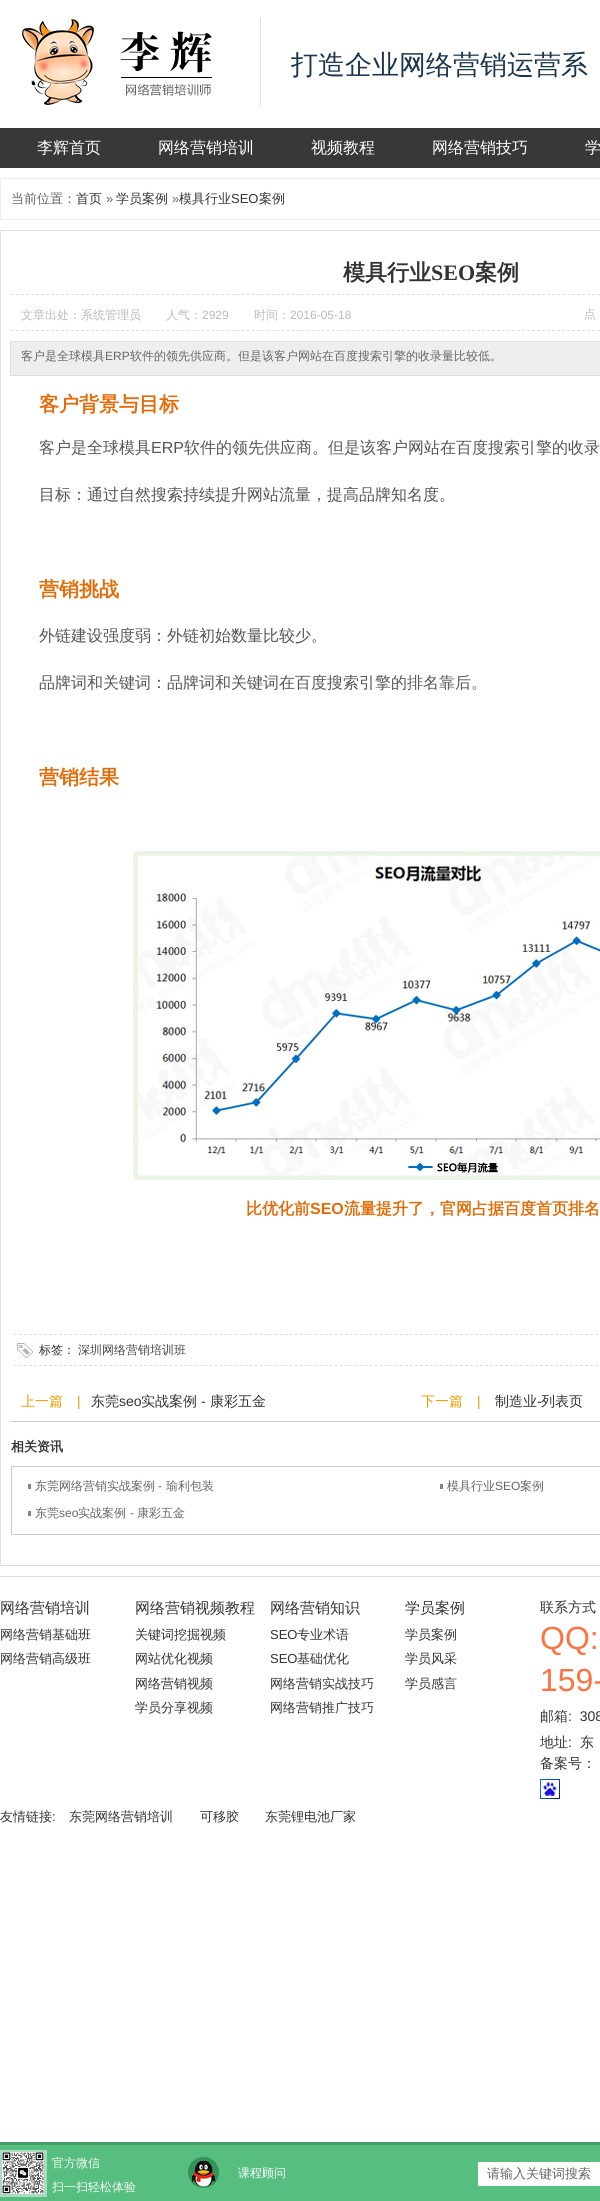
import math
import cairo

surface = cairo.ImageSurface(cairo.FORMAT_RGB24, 600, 2201)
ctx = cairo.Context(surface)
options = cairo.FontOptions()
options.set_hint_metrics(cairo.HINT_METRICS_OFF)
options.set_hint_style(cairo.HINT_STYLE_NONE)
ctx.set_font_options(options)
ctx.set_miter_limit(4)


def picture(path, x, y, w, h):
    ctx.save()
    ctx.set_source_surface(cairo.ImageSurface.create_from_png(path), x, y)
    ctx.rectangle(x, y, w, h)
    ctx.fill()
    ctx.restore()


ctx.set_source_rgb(1, 1, 1)
ctx.paint()
ctx.set_source_rgb(0.886, 0.886, 0.886)
ctx.rectangle(260, 18, 1, 88)
ctx.fill()
picture("img1.png", 22, 19, 190, 86)
ctx.select_font_face("WenQuanYi Zen Hei Medium")
ctx.set_font_size(27)
ctx.set_source_rgb(0.11, 0.212, 0.31)
ctx.move_to(291, 74)
ctx.show_text("打造企业网络营销运营系")
ctx.set_source_rgb(0.22, 0.22, 0.22)
ctx.rectangle(0, 128, 600, 40)
ctx.fill()
ctx.set_font_size(16)
ctx.set_source_rgb(1, 1, 1)
ctx.move_to(37, 153)
ctx.show_text("李辉首页")
ctx.move_to(158, 153)
ctx.show_text("网络营销培训")
ctx.move_to(311, 153)
ctx.show_text("视频教程")
ctx.move_to(432, 153)
ctx.show_text("网络营销技巧")
ctx.move_to(585, 153)
ctx.show_text("学")
ctx.rectangle(0.5, 178.5, 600, 41)
ctx.set_source_rgb(0.933, 0.933, 0.933)
ctx.set_line_width(1)
ctx.stroke()
ctx.set_font_size(13)
ctx.set_source_rgb(0.4, 0.4, 0.4)
ctx.move_to(11, 203)
ctx.show_text("当前位置：")
ctx.set_source_rgb(0.2, 0.2, 0.2)
ctx.move_to(76, 203)
ctx.show_text("首页")
ctx.select_font_face("Liberation Sans")
ctx.set_source_rgb(0.4, 0.4, 0.4)
ctx.move_to(106, 203)
ctx.show_text("»")
ctx.select_font_face("WenQuanYi Zen Hei Medium")
ctx.set_source_rgb(0.2, 0.2, 0.2)
ctx.move_to(116, 203)
ctx.show_text("学员案例")
ctx.select_font_face("Liberation Sans")
ctx.set_source_rgb(0.4, 0.4, 0.4)
ctx.move_to(172, 203)
ctx.show_text("»")
ctx.select_font_face("WenQuanYi Zen Hei Medium")
ctx.set_source_rgb(0.2, 0.2, 0.2)
ctx.move_to(179, 203)
ctx.show_text("模具行业")
ctx.select_font_face("Liberation Sans")
ctx.move_to(231, 203)
ctx.show_text("SEO")
ctx.select_font_face("WenQuanYi Zen Hei Medium")
ctx.move_to(259, 203)
ctx.show_text("案例")
ctx.rectangle(0.5, 230.5, 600, 1335)
ctx.set_source_rgb(0.875, 0.875, 0.875)
ctx.stroke()
ctx.new_path()
ctx.move_to(11, 294.5)
ctx.line_to(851, 294.5)
ctx.set_dash([3, 2.01])
ctx.stroke()
ctx.select_font_face("WenQuanYi Zen Hei", cairo.FONT_SLANT_NORMAL, cairo.FONT_WEIGHT_BOLD)
ctx.set_font_size(22)
ctx.set_source_rgb(0.2, 0.2, 0.2)
ctx.move_to(343, 280)
ctx.show_text("模具行业")
ctx.select_font_face("Liberation Serif", cairo.FONT_SLANT_NORMAL, cairo.FONT_WEIGHT_BOLD)
ctx.move_to(431, 280)
ctx.show_text("SEO")
ctx.select_font_face("WenQuanYi Zen Hei", cairo.FONT_SLANT_NORMAL, cairo.FONT_WEIGHT_BOLD)
ctx.move_to(475, 280)
ctx.show_text("案例")
ctx.new_path()
ctx.move_to(11, 330.5)
ctx.line_to(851, 330.5)
ctx.set_source_rgb(0.875, 0.875, 0.875)
ctx.stroke()
ctx.select_font_face("WenQuanYi Zen Hei Medium")
ctx.set_font_size(12)
ctx.set_source_rgb(0.737, 0.733, 0.733)
ctx.move_to(21, 319)
ctx.show_text("文章出处：系统管理员")
ctx.move_to(166, 319)
ctx.show_text("人气：")
ctx.select_font_face("Liberation Sans")
ctx.move_to(202, 319)
ctx.show_text("2929")
ctx.select_font_face("WenQuanYi Zen Hei Medium")
ctx.move_to(254, 319)
ctx.show_text("时间：")
ctx.select_font_face("Liberation Sans")
ctx.move_to(290, 319)
ctx.show_text("2016-05-18")
ctx.select_font_face("WenQuanYi Zen Hei Medium")
ctx.move_to(584, 318)
ctx.show_text("点")
ctx.set_source_rgb(0.933, 0.933, 0.933)
ctx.rectangle(10.5, 341.5, 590, 34)
ctx.fill_preserve()
ctx.set_source_rgb(0.871, 0.871, 0.871)
ctx.set_dash([])
ctx.stroke()
ctx.set_source_rgb(0.4, 0.4, 0.4)
ctx.move_to(21, 360)
ctx.show_text("客户是全球模具")
ctx.select_font_face("Liberation Sans")
ctx.move_to(105, 360)
ctx.show_text("ERP")
ctx.select_font_face("WenQuanYi Zen Hei Medium")
ctx.move_to(130, 360)
ctx.show_text("软件的领先供应商。但是该客户网站在百度搜索引擎的收录量比较低。")
ctx.select_font_face("WenQuanYi Zen Hei", cairo.FONT_SLANT_NORMAL, cairo.FONT_WEIGHT_BOLD)
ctx.set_font_size(20)
ctx.set_source_rgb(0.89, 0.424, 0.035)
ctx.move_to(39, 411)
ctx.show_text("客户背景与目标")
ctx.select_font_face("WenQuanYi Zen Hei Medium")
ctx.set_font_size(16)
ctx.set_source_rgb(0.333, 0.333, 0.333)
ctx.move_to(39, 453)
ctx.show_text("客户是全球模具")
ctx.select_font_face("Liberation Sans")
ctx.move_to(151, 453)
ctx.show_text("ERP")
ctx.select_font_face("WenQuanYi Zen Hei Medium")
ctx.move_to(184, 453)
ctx.show_text("软件的领先供应商。但是该客户网站在百度搜索引擎的收录")
ctx.move_to(39, 500)
ctx.show_text("目标：通过自然搜索持续提升网站流量，提高品牌知名度。")
ctx.select_font_face("WenQuanYi Zen Hei", cairo.FONT_SLANT_NORMAL, cairo.FONT_WEIGHT_BOLD)
ctx.set_font_size(20)
ctx.set_source_rgb(0.89, 0.424, 0.035)
ctx.move_to(39, 596)
ctx.show_text("营销挑战")
ctx.select_font_face("WenQuanYi Zen Hei Medium")
ctx.set_font_size(16)
ctx.set_source_rgb(0.333, 0.333, 0.333)
ctx.move_to(39, 641)
ctx.show_text("外链建设强度弱：外链初始数量比较少。")
ctx.move_to(39, 688)
ctx.show_text("品牌词和关键词：品牌词和关键词在百度搜索引擎的排名靠后。")
ctx.select_font_face("WenQuanYi Zen Hei", cairo.FONT_SLANT_NORMAL, cairo.FONT_WEIGHT_BOLD)
ctx.set_font_size(20)
ctx.set_source_rgb(0.89, 0.424, 0.035)
ctx.move_to(39, 784)
ctx.show_text("营销结果")
picture("img2.png", 133, 850, 467, 331)
ctx.set_font_size(16)
ctx.move_to(246, 1214)
ctx.show_text("比优化前")
ctx.select_font_face("Liberation Sans", cairo.FONT_SLANT_NORMAL, cairo.FONT_WEIGHT_BOLD)
ctx.move_to(310, 1214)
ctx.show_text("SEO")
ctx.select_font_face("WenQuanYi Zen Hei", cairo.FONT_SLANT_NORMAL, cairo.FONT_WEIGHT_BOLD)
ctx.move_to(344, 1214)
ctx.show_text("流量提升了，官网占据百度首页排名")
picture("img3.png", 17, 1343, 16, 15)
ctx.new_path()
ctx.move_to(14, 1334.5)
ctx.line_to(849, 1334.5)
ctx.set_source_rgb(0.875, 0.875, 0.875)
ctx.set_dash([3, 2.01])
ctx.stroke()
ctx.new_path()
ctx.move_to(14, 1365.5)
ctx.line_to(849, 1365.5)
ctx.stroke()
ctx.select_font_face("WenQuanYi Zen Hei Medium")
ctx.set_font_size(12)
ctx.set_source_rgb(0.2, 0.2, 0.2)
ctx.move_to(39, 1354)
ctx.show_text("标签：")
ctx.set_source_rgb(0.282, 0.282, 0.282)
ctx.move_to(78, 1354)
ctx.show_text("深圳网络营销培训班")
ctx.set_source_rgb(0.8, 0.8, 0.8)
ctx.rectangle(11, 1421, 589, 1)
ctx.fill()
ctx.set_font_size(14)
ctx.set_source_rgb(0.957, 0.596, 0)
ctx.move_to(21, 1406)
ctx.show_text("上一篇")
ctx.select_font_face("Liberation Sans")
ctx.move_to(77, 1406)
ctx.show_text("|")
ctx.select_font_face("WenQuanYi Zen Hei Medium")
ctx.set_source_rgb(0.2, 0.2, 0.2)
ctx.move_to(91, 1406)
ctx.show_text("东莞")
ctx.select_font_face("Liberation Sans")
ctx.move_to(119, 1406)
ctx.show_text("seo")
ctx.select_font_face("WenQuanYi Zen Hei Medium")
ctx.move_to(141, 1406)
ctx.show_text("实战案例")
ctx.select_font_face("Liberation Sans")
ctx.move_to(201, 1406)
ctx.show_text("-")
ctx.select_font_face("WenQuanYi Zen Hei Medium")
ctx.move_to(210, 1406)
ctx.show_text("康彩五金")
ctx.set_source_rgb(0.957, 0.596, 0)
ctx.move_to(421, 1406)
ctx.show_text("下一篇")
ctx.select_font_face("Liberation Sans")
ctx.move_to(477, 1406)
ctx.show_text("|")
ctx.select_font_face("WenQuanYi Zen Hei Medium")
ctx.set_source_rgb(0.2, 0.2, 0.2)
ctx.move_to(495, 1406)
ctx.show_text("制造业")
ctx.select_font_face("Liberation Sans")
ctx.move_to(537, 1406)
ctx.show_text("-")
ctx.select_font_face("WenQuanYi Zen Hei Medium")
ctx.move_to(541, 1406)
ctx.show_text("列表页")
ctx.select_font_face("WenQuanYi Zen Hei", cairo.FONT_SLANT_NORMAL, cairo.FONT_WEIGHT_BOLD)
ctx.set_font_size(13)
ctx.move_to(11, 1451)
ctx.show_text("相关资讯")
ctx.rectangle(11.5, 1466.5, 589, 68)
ctx.set_source_rgb(0.8, 0.8, 0.8)
ctx.set_dash([])
ctx.stroke()
ctx.set_source_rgb(0.514, 0.514, 0.514)
ctx.rectangle(28, 1484, 3, 5)
ctx.fill()
ctx.select_font_face("WenQuanYi Zen Hei Medium")
ctx.set_font_size(12)
ctx.set_source_rgb(0.4, 0.4, 0.4)
ctx.move_to(35, 1490)
ctx.show_text("东莞网络营销实战案例")
ctx.select_font_face("Liberation Sans")
ctx.move_to(158, 1490)
ctx.show_text("-")
ctx.select_font_face("WenQuanYi Zen Hei Medium")
ctx.move_to(166, 1490)
ctx.show_text("瑜利包装")
ctx.set_source_rgb(0.514, 0.514, 0.514)
ctx.rectangle(440, 1484, 3, 5)
ctx.fill()
ctx.set_source_rgb(0.4, 0.4, 0.4)
ctx.move_to(447, 1490)
ctx.show_text("模具行业")
ctx.select_font_face("Liberation Sans")
ctx.move_to(495, 1490)
ctx.show_text("SEO")
ctx.select_font_face("WenQuanYi Zen Hei Medium")
ctx.move_to(520, 1490)
ctx.show_text("案例")
ctx.set_source_rgb(0.514, 0.514, 0.514)
ctx.rectangle(28, 1511, 3, 5)
ctx.fill()
ctx.set_source_rgb(0.4, 0.4, 0.4)
ctx.move_to(35, 1517)
ctx.show_text("东莞")
ctx.select_font_face("Liberation Sans")
ctx.move_to(59, 1517)
ctx.show_text("seo")
ctx.select_font_face("WenQuanYi Zen Hei Medium")
ctx.move_to(78, 1517)
ctx.show_text("实战案例")
ctx.select_font_face("Liberation Sans")
ctx.move_to(130, 1517)
ctx.show_text("-")
ctx.select_font_face("WenQuanYi Zen Hei Medium")
ctx.move_to(137, 1517)
ctx.show_text("康彩五金")
ctx.set_source_rgb(0.871, 0.871, 0.871)
ctx.rectangle(0, 1576, 600, 1)
ctx.fill()
ctx.set_font_size(15)
ctx.set_source_rgb(0.2, 0.2, 0.2)
ctx.move_to(0, 1613)
ctx.show_text("网络营销培训")
ctx.set_font_size(13)
ctx.move_to(0, 1639)
ctx.show_text("网络营销基础班")
ctx.move_to(0, 1663)
ctx.show_text("网络营销高级班")
ctx.set_font_size(15)
ctx.move_to(135, 1613)
ctx.show_text("网络营销视频教程")
ctx.set_font_size(13)
ctx.move_to(135, 1639)
ctx.show_text("关键词挖掘视频")
ctx.move_to(135, 1663)
ctx.show_text("网站优化视频")
ctx.move_to(135, 1688)
ctx.show_text("网络营销视频")
ctx.move_to(135, 1712)
ctx.show_text("学员分享视频")
ctx.set_font_size(15)
ctx.move_to(270, 1613)
ctx.show_text("网络营销知识")
ctx.select_font_face("Liberation Sans")
ctx.set_font_size(13)
ctx.move_to(270, 1639)
ctx.show_text("SEO")
ctx.select_font_face("WenQuanYi Zen Hei Medium")
ctx.move_to(297, 1639)
ctx.show_text("专业术语")
ctx.select_font_face("Liberation Sans")
ctx.move_to(270, 1663)
ctx.show_text("SEO")
ctx.select_font_face("WenQuanYi Zen Hei Medium")
ctx.move_to(297, 1663)
ctx.show_text("基础优化")
ctx.move_to(270, 1688)
ctx.show_text("网络营销实战技巧")
ctx.move_to(270, 1712)
ctx.show_text("网络营销推广技巧")
ctx.set_font_size(15)
ctx.move_to(405, 1613)
ctx.show_text("学员案例")
ctx.set_font_size(13)
ctx.move_to(405, 1639)
ctx.show_text("学员案例")
ctx.move_to(405, 1663)
ctx.show_text("学员风采")
ctx.move_to(405, 1688)
ctx.show_text("学员感言")
ctx.set_font_size(14)
ctx.move_to(540, 1612)
ctx.show_text("联系方式")
ctx.select_font_face("Liberation Sans")
ctx.set_font_size(32)
ctx.set_source_rgb(1, 0.451, 0.259)
ctx.move_to(540, 1649)
ctx.show_text("QQ:")
ctx.move_to(540, 1691)
ctx.show_text("159-")
ctx.select_font_face("WenQuanYi Zen Hei Medium")
ctx.set_font_size(14)
ctx.set_source_rgb(0.2, 0.2, 0.2)
ctx.move_to(540, 1721)
ctx.show_text("邮箱")
ctx.select_font_face("Liberation Sans")
ctx.move_to(568, 1721)
ctx.show_text(":  308")
ctx.select_font_face("WenQuanYi Zen Hei Medium")
ctx.move_to(540, 1747)
ctx.show_text("地址")
ctx.select_font_face("Liberation Sans")
ctx.move_to(568, 1747)
ctx.show_text(":")
ctx.select_font_face("WenQuanYi Zen Hei Medium")
ctx.move_to(580, 1747)
ctx.show_text("东")
ctx.move_to(540, 1768)
ctx.show_text("备案号：")
picture("img4.png", 540, 1779, 20, 20)
ctx.set_font_size(13)
ctx.move_to(0, 1821)
ctx.show_text("友情链接")
ctx.select_font_face("Liberation Sans")
ctx.move_to(52, 1821)
ctx.show_text(":")
ctx.select_font_face("WenQuanYi Zen Hei Medium")
ctx.move_to(69, 1821)
ctx.show_text("东莞网络营销培训")
ctx.move_to(200, 1821)
ctx.show_text("可移胶")
ctx.move_to(265, 1821)
ctx.show_text("东莞锂电池厂家")
picture("img5.png", 0, 2142, 600, 59)
ctx.set_source_rgb(0.655, 0.867, 0.737)
ctx.rectangle(0, 2150, 47, 47)
ctx.fill()
picture("img6.png", 2, 2152, 42, 42)
ctx.set_font_size(12)
ctx.set_source_rgb(0.965, 0.984, 0.969)
ctx.move_to(52, 2167)
ctx.show_text("官方微信")
ctx.move_to(52, 2191)
ctx.show_text("扫一扫轻松体验")
picture("img7.png", 188, 2157, 31, 31)
ctx.set_source_rgb(1, 1, 1)
ctx.move_to(238, 2177)
ctx.show_text("课程顾问")
ctx.rectangle(478, 2162, 122, 24)
ctx.fill()
ctx.set_font_size(13)
ctx.set_source_rgb(0.4, 0.4, 0.4)
ctx.move_to(487, 2178)
ctx.show_text("请输入关键词搜索")
surface.write_to_png("page.png")
